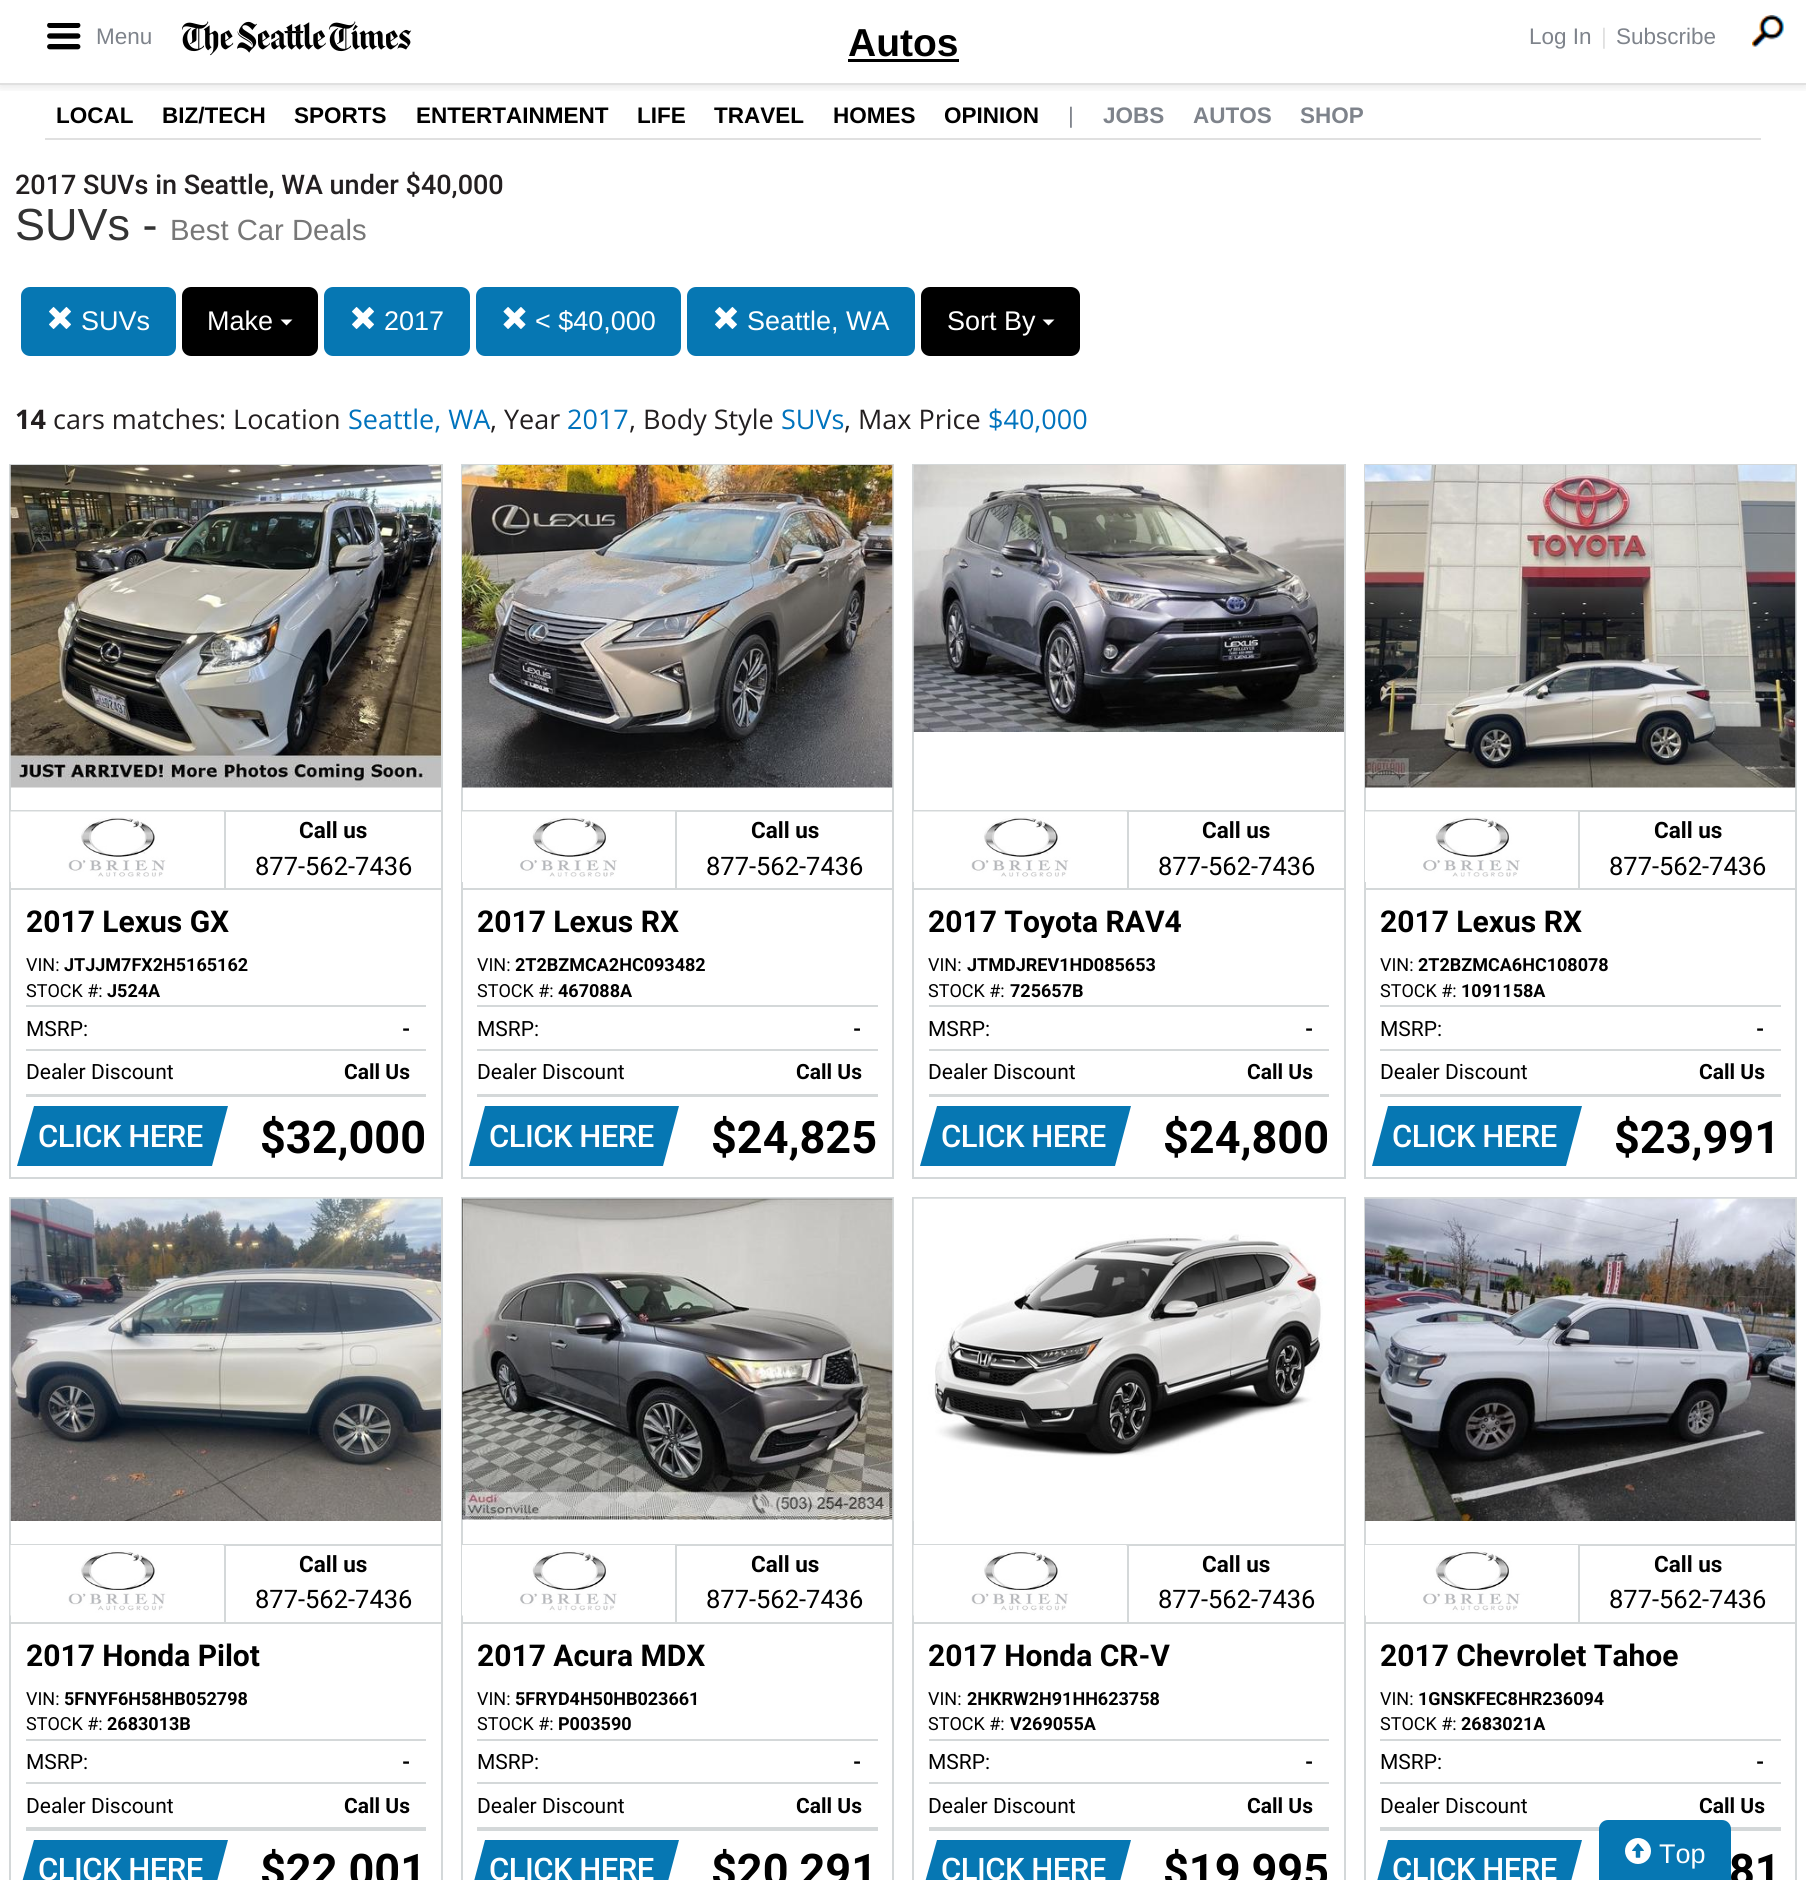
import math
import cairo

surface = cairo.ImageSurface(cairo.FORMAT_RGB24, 1806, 1880)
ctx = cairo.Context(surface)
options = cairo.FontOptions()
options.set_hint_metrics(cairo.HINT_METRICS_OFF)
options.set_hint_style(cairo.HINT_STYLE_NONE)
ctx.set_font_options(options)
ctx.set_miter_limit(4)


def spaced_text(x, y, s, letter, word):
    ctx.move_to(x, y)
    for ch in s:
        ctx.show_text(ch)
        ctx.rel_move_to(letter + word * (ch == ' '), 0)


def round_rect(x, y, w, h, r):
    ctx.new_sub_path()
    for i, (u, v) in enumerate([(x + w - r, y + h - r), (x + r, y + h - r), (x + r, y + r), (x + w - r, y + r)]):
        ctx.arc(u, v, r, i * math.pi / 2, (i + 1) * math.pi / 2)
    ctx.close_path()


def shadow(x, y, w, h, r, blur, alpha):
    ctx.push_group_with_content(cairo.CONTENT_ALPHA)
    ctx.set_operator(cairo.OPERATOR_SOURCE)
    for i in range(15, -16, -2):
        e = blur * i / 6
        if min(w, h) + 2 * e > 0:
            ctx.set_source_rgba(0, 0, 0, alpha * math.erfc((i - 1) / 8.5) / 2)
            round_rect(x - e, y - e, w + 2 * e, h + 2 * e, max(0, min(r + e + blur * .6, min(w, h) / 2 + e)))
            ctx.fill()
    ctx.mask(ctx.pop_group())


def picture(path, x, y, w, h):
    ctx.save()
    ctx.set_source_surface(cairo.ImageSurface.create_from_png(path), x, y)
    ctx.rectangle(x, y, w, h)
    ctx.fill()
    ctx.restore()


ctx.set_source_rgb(1, 1, 1)
ctx.paint()
ctx.save()
ctx.rectangle(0, 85, 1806, 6)
ctx.clip()
ctx.set_source_rgb(0, 0, 0)
shadow(0, 3, 1806, 84, 0, 5, 0.1)
ctx.restore()
ctx.set_source_rgb(0.878, 0.878, 0.878)
ctx.rectangle(0, 83, 1806, 2)
ctx.fill()
picture("img1.png", 47, 23, 34, 27)
ctx.select_font_face("Liberation Sans")
ctx.set_font_size(22.5)
ctx.set_source_rgb(0.494, 0.514, 0.545)
ctx.move_to(96, 44)
ctx.show_text("Menu")
picture("img2.png", 182, 21, 230, 35)
ctx.move_to(1529, 44)
ctx.show_text("Log In")
ctx.set_source_rgb(0.878, 0.878, 0.878)
ctx.move_to(1601, 44)
ctx.show_text("|")
ctx.set_source_rgb(0.494, 0.514, 0.545)
ctx.move_to(1616, 44)
ctx.show_text("Subscribe")
picture("img3.png", 1752, 15, 32, 32)
ctx.select_font_face("Liberation Sans", cairo.FONT_SLANT_NORMAL, cairo.FONT_WEIGHT_BOLD)
ctx.set_font_size(39)
ctx.set_source_rgb(0, 0, 0)
ctx.move_to(848, 56)
ctx.show_text("Autos")
ctx.rectangle(848, 59, 111, 3)
ctx.fill()
ctx.set_source_rgb(0.878, 0.878, 0.878)
ctx.rectangle(45, 138, 1716, 2)
ctx.fill()
ctx.set_font_size(22.5)
ctx.set_source_rgb(0, 0, 0)
ctx.move_to(56, 123)
ctx.show_text("LOCAL")
ctx.move_to(162, 123)
ctx.show_text("BIZ/TECH")
ctx.move_to(294, 123)
ctx.show_text("SPORTS")
ctx.move_to(416, 123)
ctx.show_text("ENTERTAINMENT")
ctx.move_to(637, 123)
ctx.show_text("LIFE")
ctx.move_to(714, 123)
ctx.show_text("TRAVEL")
ctx.move_to(833, 123)
ctx.show_text("HOMES")
ctx.move_to(944, 123)
ctx.show_text("OPINION")
ctx.select_font_face("Liberation Sans")
ctx.set_source_rgb(0.494, 0.514, 0.545)
ctx.move_to(1068, 123)
ctx.show_text("|")
ctx.select_font_face("Liberation Sans", cairo.FONT_SLANT_NORMAL, cairo.FONT_WEIGHT_BOLD)
ctx.move_to(1103, 123)
ctx.show_text("JOBS")
ctx.move_to(1193, 123)
ctx.show_text("AUTOS")
ctx.move_to(1300, 123)
ctx.show_text("SHOP")
ctx.select_font_face("Roboto Medium")
ctx.set_font_size(27)
ctx.set_source_rgb(0.137, 0.122, 0.125)
ctx.move_to(15, 194)
ctx.show_text("2017 SUVs in Seattle, WA under $40,000")
ctx.select_font_face("Liberation Sans")
ctx.set_font_size(45)
ctx.set_source_rgb(0.2, 0.2, 0.2)
ctx.move_to(15, 240)
ctx.show_text("SUVs -")
ctx.set_font_size(29.25)
ctx.set_source_rgb(0.467, 0.467, 0.467)
ctx.move_to(170, 240)
ctx.show_text("Best Car Deals")
ctx.set_source_rgb(0.027, 0.467, 0.702)
round_rect(21, 287, 155, 69, 9)
ctx.fill()
picture("img4.png", 49, 307, 22, 22)
ctx.set_font_size(27)
ctx.set_source_rgb(1, 1, 1)
ctx.move_to(81, 330)
ctx.show_text("SUVs")
ctx.set_source_rgb(0, 0, 0)
round_rect(182, 287, 136, 69, 9)
ctx.fill()
ctx.set_source_rgb(1, 1, 1)
ctx.move_to(207, 330)
ctx.show_text("Make")
ctx.new_path()
ctx.move_to(280.5, 319.5)
ctx.line_to(292.5, 319.5)
ctx.line_to(286.5, 325.5)
ctx.close_path()
ctx.fill()
ctx.set_source_rgb(0.027, 0.467, 0.702)
round_rect(324, 287, 146, 69, 9)
ctx.fill()
picture("img4.png", 352, 307, 22, 22)
ctx.set_source_rgb(1, 1, 1)
ctx.move_to(384, 330)
ctx.show_text("2017")
ctx.set_source_rgb(0.027, 0.467, 0.702)
round_rect(476, 287, 205, 69, 9)
ctx.fill()
picture("img5.png", 503, 307, 23, 22)
ctx.set_source_rgb(1, 1, 1)
ctx.move_to(535, 330)
ctx.show_text("< $40,000")
ctx.set_source_rgb(0.027, 0.467, 0.702)
round_rect(687, 287, 228, 69, 9)
ctx.fill()
picture("img4.png", 715, 307, 22, 22)
ctx.set_source_rgb(1, 1, 1)
ctx.move_to(747, 330)
ctx.show_text("Seattle, WA")
ctx.set_source_rgb(0, 0, 0)
round_rect(921, 287, 159, 69, 9)
ctx.fill()
ctx.set_source_rgb(1, 1, 1)
ctx.move_to(947, 330)
ctx.show_text("Sort By")
ctx.new_path()
ctx.move_to(1042.5, 319.5)
ctx.line_to(1054.5, 319.5)
ctx.line_to(1048.5, 325.5)
ctx.close_path()
ctx.fill()
ctx.select_font_face("Open Sans", cairo.FONT_SLANT_NORMAL, cairo.FONT_WEIGHT_BOLD)
ctx.set_source_rgb(0.137, 0.122, 0.125)
ctx.move_to(15, 429)
ctx.show_text("14")
ctx.select_font_face("Open Sans")
ctx.move_to(53, 429)
ctx.show_text("cars matches: Location")
ctx.set_source_rgb(0, 0.451, 0.741)
ctx.move_to(348, 429)
ctx.show_text("Seattle, WA")
ctx.set_source_rgb(0.137, 0.122, 0.125)
ctx.move_to(490, 429)
ctx.show_text(", Year")
ctx.set_source_rgb(0, 0.451, 0.741)
ctx.move_to(567, 429)
ctx.show_text("2017")
ctx.set_source_rgb(0.137, 0.122, 0.125)
ctx.move_to(629, 429)
ctx.show_text(", Body Style")
ctx.set_source_rgb(0, 0.451, 0.741)
ctx.move_to(781, 429)
ctx.show_text("SUVs")
ctx.set_source_rgb(0.137, 0.122, 0.125)
ctx.move_to(844, 429)
ctx.show_text(", Max Price")
ctx.set_source_rgb(0, 0.451, 0.741)
ctx.move_to(988, 429)
ctx.show_text("$40,000")
ctx.rectangle(10, 465, 432, 713)
ctx.set_source_rgb(0.831, 0.847, 0.851)
ctx.stroke()
picture("img6.png", 10, 465, 431, 323)
ctx.rectangle(11, 810, 214, 2)
ctx.fill()
ctx.rectangle(224, 810, 2, 80)
ctx.fill()
ctx.rectangle(11, 888, 430, 2)
ctx.fill()
picture("img7.png", 10, 811, 214, 71)
ctx.rectangle(225, 810, 216, 2)
ctx.fill()
ctx.select_font_face("Roboto", cairo.FONT_SLANT_NORMAL, cairo.FONT_WEIGHT_BOLD)
ctx.set_font_size(22.5)
ctx.set_source_rgb(0, 0, 0)
ctx.move_to(299, 838)
ctx.show_text("Call us")
ctx.select_font_face("Roboto")
ctx.set_font_size(25.5)
ctx.move_to(255, 875)
ctx.show_text("877-562-7436")
ctx.select_font_face("Roboto", cairo.FONT_SLANT_NORMAL, cairo.FONT_WEIGHT_BOLD)
ctx.set_font_size(30)
ctx.move_to(26, 932)
ctx.show_text("2017 Lexus GX")
ctx.select_font_face("Roboto")
ctx.set_font_size(18)
ctx.move_to(26, 971)
ctx.show_text("VIN:")
ctx.select_font_face("Roboto", cairo.FONT_SLANT_NORMAL, cairo.FONT_WEIGHT_BOLD)
ctx.move_to(64, 971)
ctx.show_text("JTJJM7FX2H5165162")
ctx.select_font_face("Roboto")
ctx.move_to(26, 997)
ctx.show_text("STOCK #:")
ctx.select_font_face("Roboto", cairo.FONT_SLANT_NORMAL, cairo.FONT_WEIGHT_BOLD)
ctx.move_to(107, 997)
ctx.show_text("J524A")
ctx.set_source_rgb(0.831, 0.847, 0.851)
ctx.rectangle(26, 1005, 400, 2)
ctx.fill()
ctx.rectangle(26, 1049, 400, 2)
ctx.fill()
ctx.select_font_face("Roboto")
ctx.set_font_size(21)
ctx.set_source_rgb(0, 0, 0)
ctx.move_to(26, 1036)
ctx.show_text("MSRP:")
ctx.select_font_face("Roboto", cairo.FONT_SLANT_NORMAL, cairo.FONT_WEIGHT_BOLD)
ctx.move_to(402, 1036)
ctx.show_text("-")
ctx.set_source_rgb(0.831, 0.847, 0.851)
ctx.rectangle(26, 1094, 400, 3)
ctx.fill()
ctx.select_font_face("Roboto")
ctx.set_source_rgb(0, 0, 0)
ctx.move_to(26, 1079)
ctx.show_text("Dealer Discount")
ctx.select_font_face("Roboto", cairo.FONT_SLANT_NORMAL, cairo.FONT_WEIGHT_BOLD)
ctx.move_to(344, 1079)
ctx.show_text("Call Us")
ctx.set_source_rgb(0.027, 0.467, 0.702)
ctx.new_path()
ctx.move_to(34, 1106)
ctx.line_to(228, 1106)
ctx.line_to(212, 1166)
ctx.line_to(17, 1166)
ctx.close_path()
ctx.fill()
ctx.select_font_face("Roboto Medium")
ctx.set_font_size(31)
ctx.set_source_rgb(1, 1, 1)
spaced_text(38, 1147, "CLICK HERE", -0.5, 0)
ctx.select_font_face("Roboto", cairo.FONT_SLANT_NORMAL, cairo.FONT_WEIGHT_BOLD)
ctx.set_font_size(45)
ctx.set_source_rgb(0, 0, 0)
ctx.move_to(260, 1153)
ctx.show_text("$32,000")
ctx.rectangle(462, 465, 431, 713)
ctx.set_source_rgb(0.831, 0.847, 0.851)
ctx.stroke()
picture("img8.png", 462, 465, 431, 323)
ctx.rectangle(462, 810, 431, 2)
ctx.fill()
ctx.rectangle(675, 810, 2, 80)
ctx.fill()
ctx.rectangle(462, 888, 431, 2)
ctx.fill()
picture("img9.png", 462, 811, 213, 71)
ctx.set_font_size(22.5)
ctx.set_source_rgb(0, 0, 0)
ctx.move_to(751, 838)
ctx.show_text("Call us")
ctx.select_font_face("Roboto")
ctx.set_font_size(25.5)
ctx.move_to(706, 875)
ctx.show_text("877-562-7436")
ctx.select_font_face("Roboto", cairo.FONT_SLANT_NORMAL, cairo.FONT_WEIGHT_BOLD)
ctx.set_font_size(30)
ctx.move_to(477, 932)
ctx.show_text("2017 Lexus RX")
ctx.select_font_face("Roboto")
ctx.set_font_size(18)
ctx.move_to(477, 971)
ctx.show_text("VIN:")
ctx.select_font_face("Roboto", cairo.FONT_SLANT_NORMAL, cairo.FONT_WEIGHT_BOLD)
ctx.move_to(515, 971)
ctx.show_text("2T2BZMCA2HC093482")
ctx.select_font_face("Roboto")
ctx.move_to(477, 997)
ctx.show_text("STOCK #:")
ctx.select_font_face("Roboto", cairo.FONT_SLANT_NORMAL, cairo.FONT_WEIGHT_BOLD)
ctx.move_to(558, 997)
ctx.show_text("467088A")
ctx.set_source_rgb(0.831, 0.847, 0.851)
ctx.rectangle(477, 1005, 401, 2)
ctx.fill()
ctx.rectangle(477, 1049, 401, 2)
ctx.fill()
ctx.select_font_face("Roboto")
ctx.set_font_size(21)
ctx.set_source_rgb(0, 0, 0)
ctx.move_to(477, 1036)
ctx.show_text("MSRP:")
ctx.select_font_face("Roboto", cairo.FONT_SLANT_NORMAL, cairo.FONT_WEIGHT_BOLD)
ctx.move_to(853, 1036)
ctx.show_text("-")
ctx.set_source_rgb(0.831, 0.847, 0.851)
ctx.rectangle(477, 1094, 401, 3)
ctx.fill()
ctx.select_font_face("Roboto")
ctx.set_source_rgb(0, 0, 0)
ctx.move_to(477, 1079)
ctx.show_text("Dealer Discount")
ctx.select_font_face("Roboto", cairo.FONT_SLANT_NORMAL, cairo.FONT_WEIGHT_BOLD)
ctx.move_to(796, 1079)
ctx.show_text("Call Us")
ctx.set_source_rgb(0.027, 0.467, 0.702)
ctx.new_path()
ctx.move_to(485, 1106)
ctx.line_to(679, 1106)
ctx.line_to(663, 1166)
ctx.line_to(469, 1166)
ctx.close_path()
ctx.fill()
ctx.select_font_face("Roboto Medium")
ctx.set_font_size(31)
ctx.set_source_rgb(1, 1, 1)
spaced_text(489, 1147, "CLICK HERE", -0.5, 0)
ctx.select_font_face("Roboto", cairo.FONT_SLANT_NORMAL, cairo.FONT_WEIGHT_BOLD)
ctx.set_font_size(45)
ctx.set_source_rgb(0, 0, 0)
ctx.move_to(711, 1153)
ctx.show_text("$24,825")
ctx.rectangle(913, 465, 432, 713)
ctx.set_source_rgb(0.831, 0.847, 0.851)
ctx.stroke()
picture("img10.png", 913, 465, 431, 267)
ctx.rectangle(914, 810, 214, 2)
ctx.fill()
ctx.rectangle(1127, 810, 2, 80)
ctx.fill()
ctx.rectangle(914, 888, 430, 2)
ctx.fill()
picture("img11.png", 913, 811, 214, 71)
ctx.rectangle(1128, 810, 216, 2)
ctx.fill()
ctx.set_font_size(22.5)
ctx.set_source_rgb(0, 0, 0)
ctx.move_to(1202, 838)
ctx.show_text("Call us")
ctx.select_font_face("Roboto")
ctx.set_font_size(25.5)
ctx.move_to(1158, 875)
ctx.show_text("877-562-7436")
ctx.save()
ctx.rectangle(929, 905, 253, 33)
ctx.clip()
ctx.select_font_face("Roboto", cairo.FONT_SLANT_NORMAL, cairo.FONT_WEIGHT_BOLD)
ctx.set_font_size(30)
ctx.move_to(928, 932)
ctx.show_text("2017 Toyota RAV4")
ctx.restore()
ctx.set_font_size(18)
ctx.move_to(928, 971)
ctx.show_text("VIN:")
ctx.select_font_face("Roboto", cairo.FONT_SLANT_NORMAL, cairo.FONT_WEIGHT_BOLD)
ctx.move_to(967, 971)
ctx.show_text("JTMDJREV1HD085653")
ctx.select_font_face("Roboto")
ctx.move_to(928, 997)
ctx.show_text("STOCK #:")
ctx.select_font_face("Roboto", cairo.FONT_SLANT_NORMAL, cairo.FONT_WEIGHT_BOLD)
ctx.move_to(1010, 997)
ctx.show_text("725657B")
ctx.set_source_rgb(0.831, 0.847, 0.851)
ctx.rectangle(929, 1005, 400, 2)
ctx.fill()
ctx.rectangle(929, 1049, 400, 2)
ctx.fill()
ctx.select_font_face("Roboto")
ctx.set_font_size(21)
ctx.set_source_rgb(0, 0, 0)
ctx.move_to(928, 1036)
ctx.show_text("MSRP:")
ctx.select_font_face("Roboto", cairo.FONT_SLANT_NORMAL, cairo.FONT_WEIGHT_BOLD)
ctx.move_to(1305, 1036)
ctx.show_text("-")
ctx.set_source_rgb(0.831, 0.847, 0.851)
ctx.rectangle(929, 1094, 400, 3)
ctx.fill()
ctx.select_font_face("Roboto")
ctx.set_source_rgb(0, 0, 0)
ctx.move_to(928, 1079)
ctx.show_text("Dealer Discount")
ctx.select_font_face("Roboto", cairo.FONT_SLANT_NORMAL, cairo.FONT_WEIGHT_BOLD)
ctx.move_to(1247, 1079)
ctx.show_text("Call Us")
ctx.set_source_rgb(0.027, 0.467, 0.702)
ctx.new_path()
ctx.move_to(937, 1106)
ctx.line_to(1131, 1106)
ctx.line_to(1115, 1166)
ctx.line_to(920, 1166)
ctx.close_path()
ctx.fill()
ctx.select_font_face("Roboto Medium")
ctx.set_font_size(31)
ctx.set_source_rgb(1, 1, 1)
spaced_text(941, 1147, "CLICK HERE", -0.5, 0)
ctx.select_font_face("Roboto", cairo.FONT_SLANT_NORMAL, cairo.FONT_WEIGHT_BOLD)
ctx.set_font_size(45)
ctx.set_source_rgb(0, 0, 0)
ctx.move_to(1163, 1153)
ctx.show_text("$24,800")
ctx.rectangle(1365, 465, 431, 713)
ctx.set_source_rgb(0.831, 0.847, 0.851)
ctx.stroke()
picture("img12.png", 1365, 465, 431, 323)
ctx.rectangle(1365, 810, 431, 2)
ctx.fill()
ctx.rectangle(1578, 810, 2, 80)
ctx.fill()
ctx.rectangle(1365, 888, 431, 2)
ctx.fill()
picture("img9.png", 1365, 811, 213, 71)
ctx.set_font_size(22.5)
ctx.set_source_rgb(0, 0, 0)
ctx.move_to(1654, 838)
ctx.show_text("Call us")
ctx.select_font_face("Roboto")
ctx.set_font_size(25.5)
ctx.move_to(1609, 875)
ctx.show_text("877-562-7436")
ctx.select_font_face("Roboto", cairo.FONT_SLANT_NORMAL, cairo.FONT_WEIGHT_BOLD)
ctx.set_font_size(30)
ctx.move_to(1380, 932)
ctx.show_text("2017 Lexus RX")
ctx.select_font_face("Roboto")
ctx.set_font_size(18)
ctx.move_to(1380, 971)
ctx.show_text("VIN:")
ctx.select_font_face("Roboto", cairo.FONT_SLANT_NORMAL, cairo.FONT_WEIGHT_BOLD)
ctx.move_to(1418, 971)
ctx.show_text("2T2BZMCA6HC108078")
ctx.select_font_face("Roboto")
ctx.move_to(1380, 997)
ctx.show_text("STOCK #:")
ctx.select_font_face("Roboto", cairo.FONT_SLANT_NORMAL, cairo.FONT_WEIGHT_BOLD)
ctx.move_to(1461, 997)
ctx.show_text("1091158A")
ctx.set_source_rgb(0.831, 0.847, 0.851)
ctx.rectangle(1380, 1005, 401, 2)
ctx.fill()
ctx.rectangle(1380, 1049, 401, 2)
ctx.fill()
ctx.select_font_face("Roboto")
ctx.set_font_size(21)
ctx.set_source_rgb(0, 0, 0)
ctx.move_to(1380, 1036)
ctx.show_text("MSRP:")
ctx.select_font_face("Roboto", cairo.FONT_SLANT_NORMAL, cairo.FONT_WEIGHT_BOLD)
ctx.move_to(1756, 1036)
ctx.show_text("-")
ctx.set_source_rgb(0.831, 0.847, 0.851)
ctx.rectangle(1380, 1094, 401, 3)
ctx.fill()
ctx.select_font_face("Roboto")
ctx.set_source_rgb(0, 0, 0)
ctx.move_to(1380, 1079)
ctx.show_text("Dealer Discount")
ctx.select_font_face("Roboto", cairo.FONT_SLANT_NORMAL, cairo.FONT_WEIGHT_BOLD)
ctx.move_to(1699, 1079)
ctx.show_text("Call Us")
ctx.set_source_rgb(0.027, 0.467, 0.702)
ctx.new_path()
ctx.move_to(1388, 1106)
ctx.line_to(1582, 1106)
ctx.line_to(1566, 1166)
ctx.line_to(1372, 1166)
ctx.close_path()
ctx.fill()
ctx.select_font_face("Roboto Medium")
ctx.set_font_size(31)
ctx.set_source_rgb(1, 1, 1)
spaced_text(1392, 1147, "CLICK HERE", -0.5, 0)
ctx.select_font_face("Roboto", cairo.FONT_SLANT_NORMAL, cairo.FONT_WEIGHT_BOLD)
ctx.set_font_size(45)
ctx.set_source_rgb(0, 0, 0)
ctx.move_to(1614, 1153)
ctx.show_text("$23,991")
ctx.rectangle(10, 1198, 432, 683)
ctx.set_source_rgb(0.831, 0.847, 0.851)
ctx.stroke()
picture("img13.png", 10, 1198, 431, 323)
ctx.rectangle(11, 1544, 214, 2)
ctx.fill()
ctx.rectangle(224, 1544, 2, 79)
ctx.fill()
ctx.rectangle(11, 1622, 430, 2)
ctx.fill()
picture("img14.png", 10, 1545, 214, 71)
ctx.rectangle(225, 1544, 216, 2)
ctx.fill()
ctx.set_font_size(22.5)
ctx.set_source_rgb(0, 0, 0)
ctx.move_to(299, 1572)
ctx.show_text("Call us")
ctx.select_font_face("Roboto")
ctx.set_font_size(25.5)
ctx.move_to(255, 1608)
ctx.show_text("877-562-7436")
ctx.select_font_face("Roboto", cairo.FONT_SLANT_NORMAL, cairo.FONT_WEIGHT_BOLD)
ctx.set_font_size(30)
ctx.move_to(26, 1666)
ctx.show_text("2017 Honda Pilot")
ctx.select_font_face("Roboto")
ctx.set_font_size(18)
ctx.move_to(26, 1705)
ctx.show_text("VIN:")
ctx.select_font_face("Roboto", cairo.FONT_SLANT_NORMAL, cairo.FONT_WEIGHT_BOLD)
ctx.move_to(64, 1705)
ctx.show_text("5FNYF6H58HB052798")
ctx.select_font_face("Roboto")
ctx.move_to(26, 1730)
ctx.show_text("STOCK #:")
ctx.select_font_face("Roboto", cairo.FONT_SLANT_NORMAL, cairo.FONT_WEIGHT_BOLD)
ctx.move_to(107, 1730)
ctx.show_text("2683013B")
ctx.set_source_rgb(0.831, 0.847, 0.851)
ctx.rectangle(26, 1739, 400, 2)
ctx.fill()
ctx.rectangle(26, 1782, 400, 2)
ctx.fill()
ctx.select_font_face("Roboto")
ctx.set_font_size(21)
ctx.set_source_rgb(0, 0, 0)
ctx.move_to(26, 1769)
ctx.show_text("MSRP:")
ctx.select_font_face("Roboto", cairo.FONT_SLANT_NORMAL, cairo.FONT_WEIGHT_BOLD)
ctx.move_to(402, 1769)
ctx.show_text("-")
ctx.set_source_rgb(0.831, 0.847, 0.851)
ctx.rectangle(26, 1827, 400, 4)
ctx.fill()
ctx.select_font_face("Roboto")
ctx.set_source_rgb(0, 0, 0)
ctx.move_to(26, 1813)
ctx.show_text("Dealer Discount")
ctx.select_font_face("Roboto", cairo.FONT_SLANT_NORMAL, cairo.FONT_WEIGHT_BOLD)
ctx.move_to(344, 1813)
ctx.show_text("Call Us")
ctx.set_source_rgb(0.027, 0.467, 0.702)
ctx.new_path()
ctx.move_to(34, 1840)
ctx.line_to(228, 1840)
ctx.line_to(212, 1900)
ctx.line_to(17, 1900)
ctx.close_path()
ctx.fill()
ctx.select_font_face("Roboto Medium")
ctx.set_font_size(31)
ctx.set_source_rgb(1, 1, 1)
spaced_text(38, 1880, "CLICK HERE", -0.5, 0)
ctx.select_font_face("Roboto", cairo.FONT_SLANT_NORMAL, cairo.FONT_WEIGHT_BOLD)
ctx.set_font_size(45)
ctx.set_source_rgb(0, 0, 0)
ctx.move_to(260, 1886)
ctx.show_text("$22,001")
ctx.rectangle(462, 1198, 431, 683)
ctx.set_source_rgb(0.831, 0.847, 0.851)
ctx.stroke()
picture("img15.png", 462, 1198, 431, 322)
ctx.rectangle(462, 1544, 215, 1)
ctx.fill()
ctx.rectangle(675, 1544, 2, 79)
ctx.fill()
ctx.rectangle(462, 1622, 431, 2)
ctx.fill()
picture("img16.png", 462, 1545, 213, 71)
ctx.rectangle(677, 1544, 216, 2)
ctx.fill()
ctx.set_font_size(22.5)
ctx.set_source_rgb(0, 0, 0)
ctx.move_to(751, 1572)
ctx.show_text("Call us")
ctx.select_font_face("Roboto")
ctx.set_font_size(25.5)
ctx.move_to(706, 1608)
ctx.show_text("877-562-7436")
ctx.select_font_face("Roboto", cairo.FONT_SLANT_NORMAL, cairo.FONT_WEIGHT_BOLD)
ctx.set_font_size(30)
ctx.move_to(477, 1666)
ctx.show_text("2017 Acura MDX")
ctx.select_font_face("Roboto")
ctx.set_font_size(18)
ctx.move_to(477, 1705)
ctx.show_text("VIN:")
ctx.select_font_face("Roboto", cairo.FONT_SLANT_NORMAL, cairo.FONT_WEIGHT_BOLD)
ctx.move_to(515, 1705)
ctx.show_text("5FRYD4H50HB023661")
ctx.select_font_face("Roboto")
ctx.move_to(477, 1730)
ctx.show_text("STOCK #:")
ctx.select_font_face("Roboto", cairo.FONT_SLANT_NORMAL, cairo.FONT_WEIGHT_BOLD)
ctx.move_to(558, 1730)
ctx.show_text("P003590")
ctx.set_source_rgb(0.831, 0.847, 0.851)
ctx.rectangle(477, 1739, 401, 2)
ctx.fill()
ctx.rectangle(477, 1782, 401, 2)
ctx.fill()
ctx.select_font_face("Roboto")
ctx.set_font_size(21)
ctx.set_source_rgb(0, 0, 0)
ctx.move_to(477, 1769)
ctx.show_text("MSRP:")
ctx.select_font_face("Roboto", cairo.FONT_SLANT_NORMAL, cairo.FONT_WEIGHT_BOLD)
ctx.move_to(853, 1769)
ctx.show_text("-")
ctx.set_source_rgb(0.831, 0.847, 0.851)
ctx.rectangle(477, 1827, 401, 4)
ctx.fill()
ctx.select_font_face("Roboto")
ctx.set_source_rgb(0, 0, 0)
ctx.move_to(477, 1813)
ctx.show_text("Dealer Discount")
ctx.select_font_face("Roboto", cairo.FONT_SLANT_NORMAL, cairo.FONT_WEIGHT_BOLD)
ctx.move_to(796, 1813)
ctx.show_text("Call Us")
ctx.set_source_rgb(0.027, 0.467, 0.702)
ctx.new_path()
ctx.move_to(485, 1840)
ctx.line_to(679, 1840)
ctx.line_to(663, 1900)
ctx.line_to(469, 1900)
ctx.close_path()
ctx.fill()
ctx.select_font_face("Roboto Medium")
ctx.set_font_size(31)
ctx.set_source_rgb(1, 1, 1)
spaced_text(489, 1880, "CLICK HERE", -0.5, 0)
ctx.select_font_face("Roboto", cairo.FONT_SLANT_NORMAL, cairo.FONT_WEIGHT_BOLD)
ctx.set_font_size(45)
ctx.set_source_rgb(0, 0, 0)
ctx.move_to(711, 1886)
ctx.show_text("$20,291")
ctx.rectangle(913, 1198, 432, 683)
ctx.set_source_rgb(0.831, 0.847, 0.851)
ctx.stroke()
picture("img17.png", 913, 1198, 431, 323)
ctx.rectangle(914, 1544, 214, 2)
ctx.fill()
ctx.rectangle(1127, 1544, 2, 79)
ctx.fill()
ctx.rectangle(914, 1622, 430, 2)
ctx.fill()
picture("img18.png", 913, 1545, 214, 71)
ctx.rectangle(1128, 1544, 216, 2)
ctx.fill()
ctx.set_font_size(22.5)
ctx.set_source_rgb(0, 0, 0)
ctx.move_to(1202, 1572)
ctx.show_text("Call us")
ctx.select_font_face("Roboto")
ctx.set_font_size(25.5)
ctx.move_to(1158, 1608)
ctx.show_text("877-562-7436")
ctx.select_font_face("Roboto", cairo.FONT_SLANT_NORMAL, cairo.FONT_WEIGHT_BOLD)
ctx.set_font_size(30)
ctx.move_to(928, 1666)
ctx.show_text("2017 Honda CR-V")
ctx.select_font_face("Roboto")
ctx.set_font_size(18)
ctx.move_to(928, 1705)
ctx.show_text("VIN:")
ctx.select_font_face("Roboto", cairo.FONT_SLANT_NORMAL, cairo.FONT_WEIGHT_BOLD)
ctx.move_to(967, 1705)
ctx.show_text("2HKRW2H91HH623758")
ctx.select_font_face("Roboto")
ctx.move_to(928, 1730)
ctx.show_text("STOCK #:")
ctx.select_font_face("Roboto", cairo.FONT_SLANT_NORMAL, cairo.FONT_WEIGHT_BOLD)
ctx.move_to(1010, 1730)
ctx.show_text("V269055A")
ctx.set_source_rgb(0.831, 0.847, 0.851)
ctx.rectangle(929, 1739, 400, 2)
ctx.fill()
ctx.rectangle(929, 1782, 400, 2)
ctx.fill()
ctx.select_font_face("Roboto")
ctx.set_font_size(21)
ctx.set_source_rgb(0, 0, 0)
ctx.move_to(928, 1769)
ctx.show_text("MSRP:")
ctx.select_font_face("Roboto", cairo.FONT_SLANT_NORMAL, cairo.FONT_WEIGHT_BOLD)
ctx.move_to(1305, 1769)
ctx.show_text("-")
ctx.set_source_rgb(0.831, 0.847, 0.851)
ctx.rectangle(929, 1827, 400, 4)
ctx.fill()
ctx.select_font_face("Roboto")
ctx.set_source_rgb(0, 0, 0)
ctx.move_to(928, 1813)
ctx.show_text("Dealer Discount")
ctx.select_font_face("Roboto", cairo.FONT_SLANT_NORMAL, cairo.FONT_WEIGHT_BOLD)
ctx.move_to(1247, 1813)
ctx.show_text("Call Us")
ctx.set_source_rgb(0.027, 0.467, 0.702)
ctx.new_path()
ctx.move_to(937, 1840)
ctx.line_to(1131, 1840)
ctx.line_to(1115, 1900)
ctx.line_to(920, 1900)
ctx.close_path()
ctx.fill()
ctx.select_font_face("Roboto Medium")
ctx.set_font_size(31)
ctx.set_source_rgb(1, 1, 1)
spaced_text(941, 1880, "CLICK HERE", -0.5, 0)
ctx.select_font_face("Roboto", cairo.FONT_SLANT_NORMAL, cairo.FONT_WEIGHT_BOLD)
ctx.set_font_size(45)
ctx.set_source_rgb(0, 0, 0)
ctx.move_to(1163, 1886)
ctx.show_text("$19,995")
ctx.rectangle(1365, 1198, 431, 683)
ctx.set_source_rgb(0.831, 0.847, 0.851)
ctx.stroke()
picture("img19.png", 1365, 1198, 431, 323)
ctx.rectangle(1365, 1544, 215, 1)
ctx.fill()
ctx.rectangle(1578, 1544, 2, 79)
ctx.fill()
ctx.rectangle(1365, 1622, 431, 2)
ctx.fill()
picture("img16.png", 1365, 1545, 213, 71)
ctx.rectangle(1580, 1544, 216, 2)
ctx.fill()
ctx.set_font_size(22.5)
ctx.set_source_rgb(0, 0, 0)
ctx.move_to(1654, 1572)
ctx.show_text("Call us")
ctx.select_font_face("Roboto")
ctx.set_font_size(25.5)
ctx.move_to(1609, 1608)
ctx.show_text("877-562-7436")
ctx.select_font_face("Roboto", cairo.FONT_SLANT_NORMAL, cairo.FONT_WEIGHT_BOLD)
ctx.set_font_size(30)
ctx.move_to(1380, 1666)
ctx.show_text("2017 Chevrolet Tahoe")
ctx.select_font_face("Roboto")
ctx.set_font_size(18)
ctx.move_to(1380, 1705)
ctx.show_text("VIN:")
ctx.select_font_face("Roboto", cairo.FONT_SLANT_NORMAL, cairo.FONT_WEIGHT_BOLD)
ctx.move_to(1418, 1705)
ctx.show_text("1GNSKFEC8HR236094")
ctx.select_font_face("Roboto")
ctx.move_to(1380, 1730)
ctx.show_text("STOCK #:")
ctx.select_font_face("Roboto", cairo.FONT_SLANT_NORMAL, cairo.FONT_WEIGHT_BOLD)
ctx.move_to(1461, 1730)
ctx.show_text("2683021A")
ctx.set_source_rgb(0.831, 0.847, 0.851)
ctx.rectangle(1380, 1739, 401, 2)
ctx.fill()
ctx.rectangle(1380, 1782, 401, 2)
ctx.fill()
ctx.select_font_face("Roboto")
ctx.set_font_size(21)
ctx.set_source_rgb(0, 0, 0)
ctx.move_to(1380, 1769)
ctx.show_text("MSRP:")
ctx.select_font_face("Roboto", cairo.FONT_SLANT_NORMAL, cairo.FONT_WEIGHT_BOLD)
ctx.move_to(1756, 1769)
ctx.show_text("-")
ctx.set_source_rgb(0.831, 0.847, 0.851)
ctx.rectangle(1380, 1827, 401, 4)
ctx.fill()
ctx.select_font_face("Roboto")
ctx.set_source_rgb(0, 0, 0)
ctx.move_to(1380, 1813)
ctx.show_text("Dealer Discount")
ctx.select_font_face("Roboto", cairo.FONT_SLANT_NORMAL, cairo.FONT_WEIGHT_BOLD)
ctx.move_to(1699, 1813)
ctx.show_text("Call Us")
ctx.set_source_rgb(0.027, 0.467, 0.702)
ctx.new_path()
ctx.move_to(1388, 1840)
ctx.line_to(1582, 1840)
ctx.line_to(1566, 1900)
ctx.line_to(1372, 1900)
ctx.close_path()
ctx.fill()
ctx.select_font_face("Roboto Medium")
ctx.set_font_size(31)
ctx.set_source_rgb(1, 1, 1)
spaced_text(1392, 1880, "CLICK HERE", -0.5, 0)
ctx.select_font_face("Roboto", cairo.FONT_SLANT_NORMAL, cairo.FONT_WEIGHT_BOLD)
ctx.set_font_size(45)
ctx.set_source_rgb(0, 0, 0)
ctx.move_to(1729, 1886)
ctx.show_text("81")
ctx.set_source_rgb(0.027, 0.467, 0.702)
round_rect(1600, 1821, 130, 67, 8)
ctx.fill_preserve()
ctx.stroke()
picture("img20.png", 1625, 1838, 26, 26)
ctx.select_font_face("Liberation Sans")
ctx.set_font_size(27)
ctx.set_source_rgb(1, 1, 1)
ctx.move_to(1659, 1863)
ctx.show_text("Top")
surface.write_to_png("page.png")
